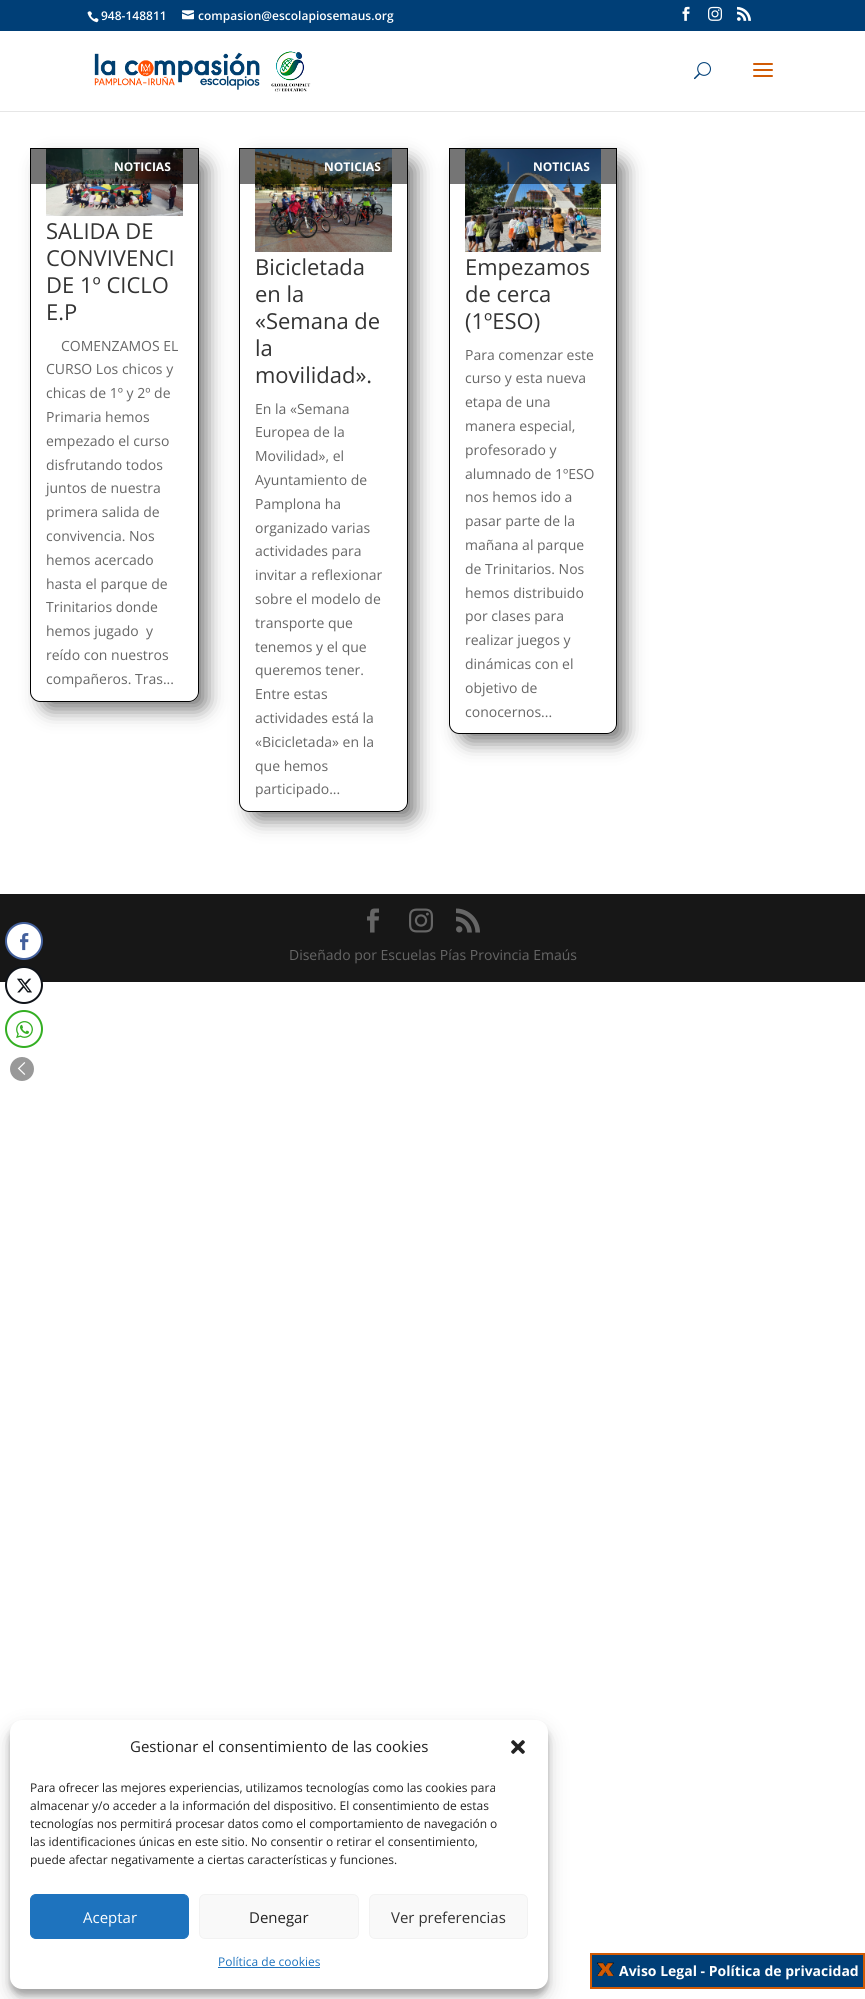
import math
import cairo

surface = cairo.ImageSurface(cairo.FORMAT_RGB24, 865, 1999)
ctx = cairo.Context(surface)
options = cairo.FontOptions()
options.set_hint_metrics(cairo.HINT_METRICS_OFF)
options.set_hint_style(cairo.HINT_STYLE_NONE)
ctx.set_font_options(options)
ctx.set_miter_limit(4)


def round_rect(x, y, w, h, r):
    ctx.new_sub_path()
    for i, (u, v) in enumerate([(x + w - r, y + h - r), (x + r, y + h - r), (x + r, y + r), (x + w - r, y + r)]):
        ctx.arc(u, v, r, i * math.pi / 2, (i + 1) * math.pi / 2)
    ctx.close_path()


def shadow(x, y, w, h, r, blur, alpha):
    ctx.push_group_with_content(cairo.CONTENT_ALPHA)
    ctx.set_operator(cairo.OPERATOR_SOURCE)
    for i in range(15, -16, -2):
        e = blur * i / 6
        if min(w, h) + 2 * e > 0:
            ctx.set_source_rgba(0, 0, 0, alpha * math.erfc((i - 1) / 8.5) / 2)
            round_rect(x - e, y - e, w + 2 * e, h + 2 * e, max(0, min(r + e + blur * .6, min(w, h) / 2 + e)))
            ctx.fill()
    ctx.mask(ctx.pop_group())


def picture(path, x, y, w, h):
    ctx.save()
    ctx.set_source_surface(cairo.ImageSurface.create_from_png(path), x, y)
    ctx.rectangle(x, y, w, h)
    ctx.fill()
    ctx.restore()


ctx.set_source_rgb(1, 1, 1)
ctx.paint()
ctx.set_source_rgb(0, 0.247, 0.467)
ctx.rectangle(0, 0, 865, 31)
ctx.fill()
picture("img1.png", 87, 11, 12, 12)
ctx.select_font_face("Open Sans SemiBold")
ctx.set_font_size(12)
ctx.set_source_rgb(1, 1, 1)
ctx.move_to(101, 20)
ctx.show_text("948-148811")
picture("img2.png", 182, 10, 12, 10)
ctx.move_to(198, 20)
ctx.show_text("compasion@escolapiosemaus.org")
picture("img3.png", 682, 6, 8, 15)
picture("img4.png", 708, 6, 14, 15)
picture("img5.png", 737, 6, 14, 15)
ctx.set_source_rgb(0.902, 0.902, 0.902)
ctx.rectangle(0, 111, 865, 1)
ctx.fill()
picture("img6.png", 94, 52, 166, 38)
picture("img7.png", 271, 51, 40, 41)
picture("img8.png", 694, 62, 17, 18)
picture("img9.png", 753, 63, 20, 14)
ctx.save()
ctx.set_fill_rule(cairo.FILL_RULE_EVEN_ODD)
ctx.new_path()
ctx.move_to(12, 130)
ctx.line_to(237, 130)
ctx.line_to(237, 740)
ctx.line_to(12, 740)
ctx.close_path()
ctx.move_to(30, 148)
ctx.line_to(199, 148)
ctx.line_to(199, 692)
ctx.curve_to(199, 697.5, 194.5, 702, 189, 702)
ctx.line_to(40, 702)
ctx.curve_to(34.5, 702, 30, 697.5, 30, 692)
ctx.close_path()
ctx.clip()
ctx.set_source_rgb(0, 0, 0)
shadow(43, 161, 163, 548, 7, 10, 0.55)
ctx.restore()
ctx.new_path()
ctx.move_to(30.5, 148.5)
ctx.line_to(198.5, 148.5)
ctx.line_to(198.5, 692)
ctx.curve_to(198.5, 697, 194, 701.5, 189, 701.5)
ctx.line_to(40, 701.5)
ctx.curve_to(35, 701.5, 30.5, 697, 30.5, 692)
ctx.close_path()
ctx.set_source_rgb(0, 0, 0)
ctx.set_line_width(1)
ctx.stroke()
picture("img10.png", 46, 149, 137, 67)
ctx.set_source_rgba(0, 0, 0, 0.54)
ctx.rectangle(31, 149, 167, 35)
ctx.fill()
ctx.select_font_face("Open Sans", cairo.FONT_SLANT_NORMAL, cairo.FONT_WEIGHT_BOLD)
ctx.set_source_rgb(1, 1, 1)
ctx.move_to(114, 171)
ctx.show_text("NOTICIAS")
ctx.select_font_face("Open Sans")
ctx.set_font_size(22)
ctx.set_source_rgb(0.2, 0.2, 0.2)
ctx.move_to(46, 239)
ctx.show_text("SALIDA DE")
ctx.move_to(46, 266)
ctx.show_text("CONVIVENCI")
ctx.move_to(46, 293)
ctx.show_text("DE 1º CICLO")
ctx.move_to(46, 320)
ctx.show_text("E.P")
ctx.set_font_size(14)
ctx.set_source_rgb(0.4, 0.4, 0.4)
ctx.move_to(61, 351)
ctx.show_text("COMENZAMOS EL")
ctx.move_to(46, 374)
ctx.show_text("CURSO Los chicos y")
ctx.move_to(46, 398)
ctx.show_text("chicas de 1º y 2º de")
ctx.move_to(46, 422)
ctx.show_text("Primaria hemos")
ctx.move_to(46, 446)
ctx.show_text("empezado el curso")
ctx.move_to(46, 470)
ctx.show_text("disfrutando todos")
ctx.move_to(46, 493)
ctx.show_text("juntos de nuestra")
ctx.move_to(46, 517)
ctx.show_text("primera salida de")
ctx.move_to(46, 541)
ctx.show_text("convivencia. Nos")
ctx.move_to(46, 565)
ctx.show_text("hemos acercado")
ctx.move_to(46, 589)
ctx.show_text("hasta el parque de")
ctx.move_to(46, 612)
ctx.show_text("Trinitarios donde")
ctx.move_to(46, 636)
ctx.show_text("hemos jugado  y")
ctx.move_to(46, 660)
ctx.show_text("reído con nuestros")
ctx.move_to(46, 684)
ctx.show_text("compañeros. Tras...")
ctx.save()
ctx.set_fill_rule(cairo.FILL_RULE_EVEN_ODD)
ctx.new_path()
ctx.move_to(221, 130)
ctx.line_to(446, 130)
ctx.line_to(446, 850)
ctx.line_to(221, 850)
ctx.close_path()
ctx.move_to(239, 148)
ctx.line_to(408, 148)
ctx.line_to(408, 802)
ctx.curve_to(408, 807.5, 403.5, 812, 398, 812)
ctx.line_to(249, 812)
ctx.curve_to(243.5, 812, 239, 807.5, 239, 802)
ctx.close_path()
ctx.clip()
ctx.set_source_rgb(0, 0, 0)
shadow(252, 161, 163, 658, 7, 10, 0.55)
ctx.restore()
ctx.new_path()
ctx.move_to(239.5, 148.5)
ctx.line_to(407.5, 148.5)
ctx.line_to(407.5, 802)
ctx.curve_to(407.5, 807, 403, 811.5, 398, 811.5)
ctx.line_to(249, 811.5)
ctx.curve_to(244, 811.5, 239.5, 807, 239.5, 802)
ctx.close_path()
ctx.set_source_rgb(0, 0, 0)
ctx.stroke()
picture("img11.png", 255, 149, 137, 103)
ctx.set_source_rgba(0, 0, 0, 0.54)
ctx.rectangle(240, 149, 167, 35)
ctx.fill()
ctx.select_font_face("Open Sans", cairo.FONT_SLANT_NORMAL, cairo.FONT_WEIGHT_BOLD)
ctx.set_font_size(12)
ctx.set_source_rgb(1, 1, 1)
ctx.move_to(324, 171)
ctx.show_text("NOTICIAS")
ctx.select_font_face("Open Sans")
ctx.set_font_size(22)
ctx.set_source_rgb(0.2, 0.2, 0.2)
ctx.move_to(255, 275)
ctx.show_text("Bicicletada")
ctx.move_to(255, 302)
ctx.show_text("en la")
ctx.move_to(255, 329)
ctx.show_text("«Semana de")
ctx.move_to(255, 356)
ctx.show_text("la")
ctx.move_to(255, 383)
ctx.show_text("movilidad».")
ctx.set_font_size(14)
ctx.set_source_rgb(0.4, 0.4, 0.4)
ctx.move_to(255, 414)
ctx.show_text("En la «Semana")
ctx.move_to(255, 437)
ctx.show_text("Europea de la")
ctx.move_to(255, 461)
ctx.show_text("Movilidad», el")
ctx.move_to(255, 485)
ctx.show_text("Ayuntamiento de")
ctx.move_to(255, 509)
ctx.show_text("Pamplona ha")
ctx.move_to(255, 533)
ctx.show_text("organizado varias")
ctx.move_to(255, 556)
ctx.show_text("actividades para")
ctx.move_to(255, 580)
ctx.show_text("invitar a reflexionar")
ctx.move_to(255, 604)
ctx.show_text("sobre el modelo de")
ctx.move_to(255, 628)
ctx.show_text("transporte que")
ctx.move_to(255, 652)
ctx.show_text("tenemos y el que")
ctx.move_to(255, 675)
ctx.show_text("queremos tener.")
ctx.move_to(255, 699)
ctx.show_text("Entre estas")
ctx.move_to(255, 723)
ctx.show_text("actividades está la")
ctx.move_to(255, 747)
ctx.show_text("«Bicicletada» en la")
ctx.move_to(255, 771)
ctx.show_text("que hemos")
ctx.move_to(255, 794)
ctx.show_text("participado...")
ctx.save()
ctx.set_fill_rule(cairo.FILL_RULE_EVEN_ODD)
ctx.new_path()
ctx.move_to(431, 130)
ctx.line_to(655, 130)
ctx.line_to(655, 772)
ctx.line_to(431, 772)
ctx.close_path()
ctx.move_to(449, 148)
ctx.line_to(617, 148)
ctx.line_to(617, 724)
ctx.curve_to(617, 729.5, 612.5, 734, 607, 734)
ctx.line_to(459, 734)
ctx.curve_to(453.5, 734, 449, 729.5, 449, 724)
ctx.close_path()
ctx.clip()
ctx.set_source_rgb(0, 0, 0)
shadow(462, 161, 162, 580, 7, 10, 0.55)
ctx.restore()
ctx.new_path()
ctx.move_to(449.5, 148.5)
ctx.line_to(616.5, 148.5)
ctx.line_to(616.5, 724)
ctx.curve_to(616.5, 729, 612, 733.5, 607, 733.5)
ctx.line_to(459, 733.5)
ctx.curve_to(454, 733.5, 449.5, 729, 449.5, 724)
ctx.close_path()
ctx.set_source_rgb(0, 0, 0)
ctx.stroke()
picture("img12.png", 465, 149, 136, 103)
ctx.set_source_rgba(0, 0, 0, 0.54)
ctx.rectangle(450, 149, 166, 35)
ctx.fill()
ctx.select_font_face("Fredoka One")
ctx.set_font_size(12)
ctx.set_source_rgb(0.4, 0.4, 0.4)
ctx.move_to(507, 171)
ctx.show_text("|")
ctx.select_font_face("Open Sans", cairo.FONT_SLANT_NORMAL, cairo.FONT_WEIGHT_BOLD)
ctx.set_source_rgb(1, 1, 1)
ctx.move_to(533, 171)
ctx.show_text("NOTICIAS")
ctx.select_font_face("Open Sans")
ctx.set_font_size(22)
ctx.set_source_rgb(0.2, 0.2, 0.2)
ctx.move_to(465, 275)
ctx.show_text("Empezamos")
ctx.move_to(465, 302)
ctx.show_text("de cerca")
ctx.move_to(465, 329)
ctx.show_text("(1ºESO)")
ctx.set_font_size(14)
ctx.set_source_rgb(0.4, 0.4, 0.4)
ctx.move_to(465, 360)
ctx.show_text("Para comenzar este")
ctx.move_to(465, 383)
ctx.show_text("curso y esta nueva")
ctx.move_to(465, 407)
ctx.show_text("etapa de una")
ctx.move_to(465, 431)
ctx.show_text("manera especial,")
ctx.move_to(465, 455)
ctx.show_text("profesorado y")
ctx.move_to(465, 479)
ctx.show_text("alumnado de 1ºESO")
ctx.move_to(465, 502)
ctx.show_text("nos hemos ido a")
ctx.move_to(465, 526)
ctx.show_text("pasar parte de la")
ctx.move_to(465, 550)
ctx.show_text("mañana al parque")
ctx.move_to(465, 574)
ctx.show_text("de Trinitarios. Nos")
ctx.move_to(465, 598)
ctx.show_text("hemos distribuido")
ctx.move_to(465, 621)
ctx.show_text("por clases para")
ctx.move_to(465, 645)
ctx.show_text("realizar juegos y")
ctx.move_to(465, 669)
ctx.show_text("dinámicas con el")
ctx.move_to(465, 693)
ctx.show_text("objetivo de")
ctx.move_to(465, 717)
ctx.show_text("conocernos...")
ctx.set_source_rgb(0.09, 0.09, 0.09)
ctx.rectangle(0, 894, 865, 88)
ctx.fill()
picture("img13.png", 367, 908, 12, 25)
picture("img14.png", 409, 908, 24, 25)
picture("img15.png", 456, 908, 24, 25)
ctx.set_source_rgb(0.4, 0.4, 0.4)
ctx.move_to(289, 960)
ctx.show_text("Diseñado por Escuelas Pías Provincia Emaús")
ctx.set_source_rgb(1, 1, 1)
ctx.new_path()
ctx.arc(24, 941, 18, 0, 2 * math.pi)
ctx.fill_preserve()
ctx.set_source_rgb(0.263, 0.376, 0.612)
ctx.set_line_width(2)
ctx.stroke()
picture("img16.png", 20, 933, 9, 18)
ctx.set_source_rgb(1, 1, 1)
ctx.arc(24, 985, 18, 0, 2 * math.pi)
ctx.fill_preserve()
ctx.set_source_rgb(0.059, 0.078, 0.098)
ctx.stroke()
picture("img17.png", 17, 978, 15, 15)
ctx.arc(24, 1029, 18, 0, 2 * math.pi)
ctx.set_source_rgb(0.204, 0.686, 0.137)
ctx.stroke()
picture("img18.png", 16, 1021, 17, 17)
ctx.set_source_rgb(0.6, 0.6, 0.6)
ctx.arc(22, 1069, 12, 0, 2 * math.pi)
ctx.fill()
picture("img19.png", 17, 1062, 9, 13)
ctx.set_source_rgb(0, 0, 0)
shadow(10, 1726, 538, 269, 12, 3, 0.23)
shadow(10, 1730, 538, 269, 12, 10, 0.19)
ctx.set_source_rgb(1, 1, 1)
round_rect(10, 1720, 538, 269, 12)
ctx.fill()
ctx.set_font_size(15)
ctx.set_source_rgb(0.133, 0.133, 0.133)
ctx.move_to(130, 1752)
ctx.show_text("Gestionar el consentimiento de las cookies")
picture("img20.png", 511, 1740, 14, 14)
ctx.set_font_size(12)
ctx.move_to(30, 1792)
ctx.show_text("Para ofrecer las mejores experiencias, utilizamos tecnologías como las cookies para")
ctx.move_to(30, 1810)
ctx.show_text("almacenar y/o acceder a la información del dispositivo. El consentimiento de estas")
ctx.move_to(30, 1828)
ctx.show_text("tecnologías nos permitirá procesar datos como el comportamiento de navegación o")
ctx.move_to(30, 1846)
ctx.show_text("las identificaciones únicas en este sitio. No consentir o retirar el consentimiento,")
ctx.move_to(30, 1864)
ctx.show_text("puede afectar negativamente a ciertas características y funciones.")
ctx.set_source_rgb(0.118, 0.451, 0.745)
round_rect(30.5, 1894.5, 158, 44, 5.5)
ctx.fill_preserve()
ctx.set_line_width(1)
ctx.stroke()
ctx.set_font_size(15)
ctx.set_source_rgb(1, 1, 1)
ctx.move_to(83, 1923)
ctx.show_text("Aceptar")
ctx.set_source_rgb(0.976, 0.976, 0.976)
round_rect(199.5, 1894.5, 159, 44, 5.5)
ctx.fill_preserve()
ctx.set_source_rgb(0.949, 0.949, 0.949)
ctx.stroke()
ctx.set_source_rgb(0.133, 0.133, 0.133)
ctx.move_to(249, 1923)
ctx.show_text("Denegar")
ctx.set_source_rgb(0.976, 0.976, 0.976)
round_rect(369.5, 1894.5, 158, 44, 5.5)
ctx.fill_preserve()
ctx.set_source_rgb(0.949, 0.949, 0.949)
ctx.stroke()
ctx.set_source_rgb(0.2, 0.2, 0.2)
ctx.move_to(391, 1923)
ctx.show_text("Ver preferencias")
ctx.set_font_size(12)
ctx.set_source_rgb(0.118, 0.451, 0.745)
ctx.move_to(218, 1966)
ctx.show_text("Política de cookies")
ctx.rectangle(218, 1967, 102, 1)
ctx.fill()
ctx.set_source_rgb(0, 0.247, 0.467)
ctx.rectangle(591, 1954, 273, 34)
ctx.fill_preserve()
ctx.set_source_rgb(0.82, 0.357, 0.02)
ctx.set_line_width(2)
ctx.stroke()
picture("img21.png", 596, 1962, 18, 14)
ctx.select_font_face("Open Sans", cairo.FONT_SLANT_NORMAL, cairo.FONT_WEIGHT_BOLD)
ctx.set_font_size(14)
ctx.set_source_rgb(1, 1, 1)
ctx.move_to(619, 1976)
ctx.show_text("Aviso Legal - Política de privacidad")
surface.write_to_png("page.png")
